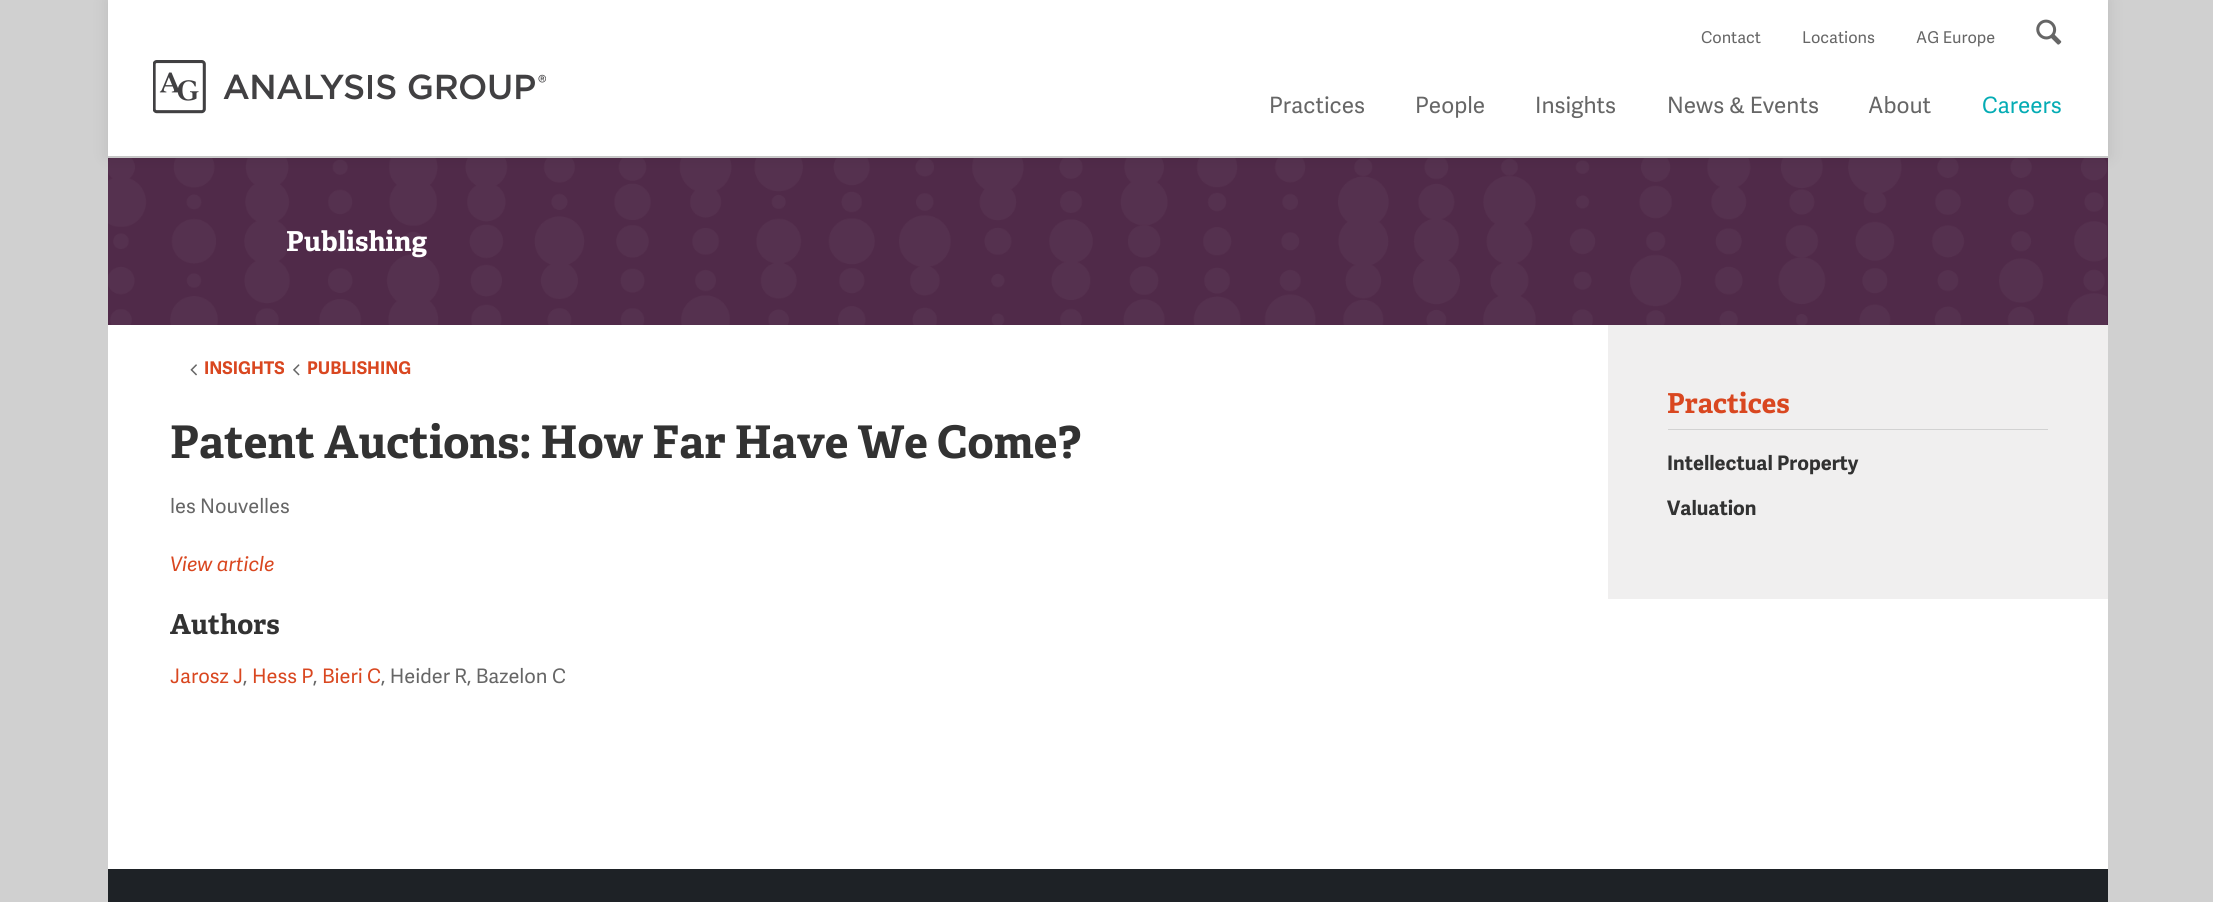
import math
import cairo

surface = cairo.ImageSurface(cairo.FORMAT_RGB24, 2213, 902)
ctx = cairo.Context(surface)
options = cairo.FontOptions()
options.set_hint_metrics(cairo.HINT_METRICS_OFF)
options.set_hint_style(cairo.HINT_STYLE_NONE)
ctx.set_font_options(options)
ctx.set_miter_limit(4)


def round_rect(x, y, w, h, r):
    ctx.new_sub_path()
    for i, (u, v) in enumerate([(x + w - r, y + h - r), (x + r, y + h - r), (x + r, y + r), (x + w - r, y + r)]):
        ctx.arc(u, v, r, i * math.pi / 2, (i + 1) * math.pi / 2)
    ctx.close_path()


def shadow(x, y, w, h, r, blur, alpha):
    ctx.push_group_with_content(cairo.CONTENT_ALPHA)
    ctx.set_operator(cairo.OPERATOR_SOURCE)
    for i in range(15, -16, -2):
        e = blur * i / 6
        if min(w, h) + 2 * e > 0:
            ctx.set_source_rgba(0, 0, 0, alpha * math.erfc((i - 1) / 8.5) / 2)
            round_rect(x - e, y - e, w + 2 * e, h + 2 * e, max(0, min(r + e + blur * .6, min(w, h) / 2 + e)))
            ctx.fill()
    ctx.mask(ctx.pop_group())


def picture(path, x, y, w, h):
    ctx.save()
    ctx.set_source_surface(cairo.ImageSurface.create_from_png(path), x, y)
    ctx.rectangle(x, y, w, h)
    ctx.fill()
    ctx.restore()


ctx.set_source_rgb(0.816, 0.816, 0.816)
ctx.paint()
ctx.set_source_rgb(0.314, 0.165, 0.286)
ctx.rectangle(108, 158, 2000, 167)
ctx.fill()
picture("img3.png", 108, 158, 1999, 167)
ctx.set_source_rgb(0, 0, 0)
shadow(108, 0, 2000, 156, 0, 8, 0.1)
ctx.set_source_rgb(1, 1, 1)
ctx.rectangle(108, 0, 2000, 156)
ctx.fill()
ctx.select_font_face("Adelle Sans")
ctx.set_font_size(16.25)
ctx.set_source_rgb(0.4, 0.4, 0.4)
ctx.move_to(1701, 43)
ctx.show_text("Contact")
ctx.move_to(1802, 43)
ctx.show_text("Locations")
ctx.move_to(1916, 43)
ctx.show_text("AG Europe")
picture("img1.png", 2036, 19, 26, 26)
picture("img2.png", 153, 60, 393, 54)
ctx.set_font_size(22.5)
ctx.move_to(1269, 113)
ctx.show_text("Practices")
ctx.move_to(1415, 113)
ctx.show_text("People")
ctx.move_to(1535, 113)
ctx.show_text("Insights")
ctx.move_to(1667, 113)
ctx.show_text("News & Events")
ctx.move_to(1868, 113)
ctx.show_text("About")
ctx.set_source_rgb(0.016, 0.675, 0.706)
ctx.move_to(1982, 113)
ctx.show_text("Careers")
ctx.set_source_rgb(1, 1, 1)
ctx.rectangle(108, 325, 2000, 544)
ctx.fill()
ctx.select_font_face("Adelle", cairo.FONT_SLANT_NORMAL, cairo.FONT_WEIGHT_BOLD)
ctx.set_font_size(27.5)
ctx.move_to(286, 251)
ctx.show_text("Publishing")
picture("img4.png", 190, 364, 7, 12)
ctx.select_font_face("Adelle Sans", cairo.FONT_SLANT_NORMAL, cairo.FONT_WEIGHT_BOLD)
ctx.set_font_size(17.5)
ctx.set_source_rgb(0.851, 0.278, 0.125)
ctx.move_to(204, 374)
ctx.show_text("INSIGHTS")
picture("img5.png", 293, 364, 7, 12)
ctx.move_to(307, 374)
ctx.show_text("PUBLISHING")
ctx.select_font_face("Adelle", cairo.FONT_SLANT_NORMAL, cairo.FONT_WEIGHT_BOLD)
ctx.set_font_size(45)
ctx.set_source_rgb(0.196, 0.196, 0.196)
ctx.move_to(170, 458)
ctx.show_text("Patent Auctions: How Far Have We Come?")
ctx.select_font_face("Adelle Sans")
ctx.set_font_size(20)
ctx.set_source_rgb(0.4, 0.4, 0.4)
ctx.move_to(170, 513)
ctx.show_text("les Nouvelles")
ctx.select_font_face("Adelle Sans", cairo.FONT_SLANT_ITALIC)
ctx.set_source_rgb(0.851, 0.278, 0.125)
ctx.move_to(170, 571)
ctx.show_text("View article")
ctx.select_font_face("Adelle", cairo.FONT_SLANT_NORMAL, cairo.FONT_WEIGHT_BOLD)
ctx.set_font_size(27.5)
ctx.set_source_rgb(0.196, 0.196, 0.196)
ctx.move_to(170, 634)
ctx.show_text("Authors")
ctx.select_font_face("Adelle Sans")
ctx.set_font_size(20)
ctx.set_source_rgb(0.851, 0.278, 0.125)
ctx.move_to(170, 683)
ctx.show_text("Jarosz J")
ctx.set_source_rgb(0.4, 0.4, 0.4)
ctx.move_to(243, 683)
ctx.show_text(",")
ctx.set_source_rgb(0.851, 0.278, 0.125)
ctx.move_to(252, 683)
ctx.show_text("Hess P")
ctx.set_source_rgb(0.4, 0.4, 0.4)
ctx.move_to(313, 683)
ctx.show_text(",")
ctx.set_source_rgb(0.851, 0.278, 0.125)
ctx.move_to(322, 683)
ctx.show_text("Bieri C")
ctx.set_source_rgb(0.4, 0.4, 0.4)
ctx.move_to(381, 683)
ctx.show_text(", Heider R, Bazelon C")
ctx.set_source_rgb(0.941, 0.937, 0.937)
ctx.rectangle(1608, 325, 500, 274)
ctx.fill()
ctx.set_source_rgb(0.824, 0.824, 0.824)
ctx.rectangle(1668, 429, 380, 1)
ctx.fill()
ctx.select_font_face("Adelle", cairo.FONT_SLANT_NORMAL, cairo.FONT_WEIGHT_BOLD)
ctx.set_font_size(27.5)
ctx.set_source_rgb(0.851, 0.278, 0.125)
ctx.move_to(1667, 413)
ctx.show_text("Practices")
ctx.select_font_face("Adelle Sans", cairo.FONT_SLANT_NORMAL, cairo.FONT_WEIGHT_BOLD)
ctx.set_font_size(20)
ctx.set_source_rgb(0.196, 0.196, 0.196)
ctx.move_to(1667, 470)
ctx.show_text("Intellectual Property")
ctx.move_to(1667, 515)
ctx.show_text("Valuation")
ctx.set_source_rgb(0.118, 0.133, 0.149)
ctx.rectangle(108, 869, 2000, 33)
ctx.fill()
surface.write_to_png("page.png")
